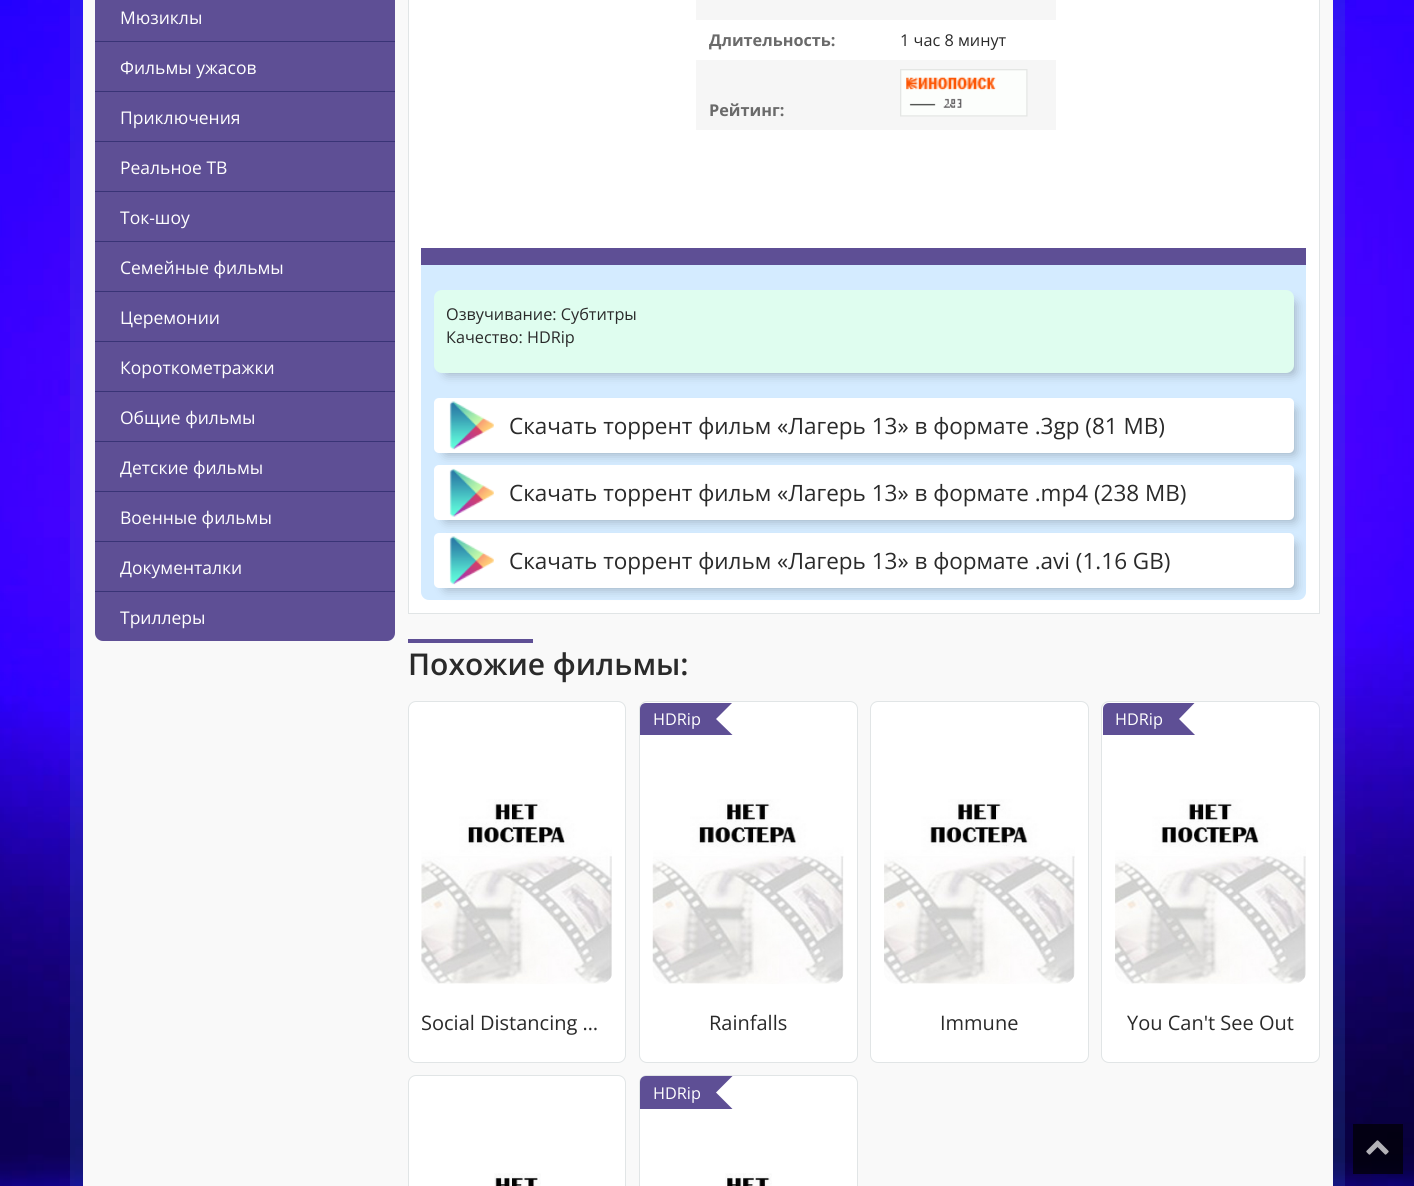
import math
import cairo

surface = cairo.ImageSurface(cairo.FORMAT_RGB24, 1414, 1186)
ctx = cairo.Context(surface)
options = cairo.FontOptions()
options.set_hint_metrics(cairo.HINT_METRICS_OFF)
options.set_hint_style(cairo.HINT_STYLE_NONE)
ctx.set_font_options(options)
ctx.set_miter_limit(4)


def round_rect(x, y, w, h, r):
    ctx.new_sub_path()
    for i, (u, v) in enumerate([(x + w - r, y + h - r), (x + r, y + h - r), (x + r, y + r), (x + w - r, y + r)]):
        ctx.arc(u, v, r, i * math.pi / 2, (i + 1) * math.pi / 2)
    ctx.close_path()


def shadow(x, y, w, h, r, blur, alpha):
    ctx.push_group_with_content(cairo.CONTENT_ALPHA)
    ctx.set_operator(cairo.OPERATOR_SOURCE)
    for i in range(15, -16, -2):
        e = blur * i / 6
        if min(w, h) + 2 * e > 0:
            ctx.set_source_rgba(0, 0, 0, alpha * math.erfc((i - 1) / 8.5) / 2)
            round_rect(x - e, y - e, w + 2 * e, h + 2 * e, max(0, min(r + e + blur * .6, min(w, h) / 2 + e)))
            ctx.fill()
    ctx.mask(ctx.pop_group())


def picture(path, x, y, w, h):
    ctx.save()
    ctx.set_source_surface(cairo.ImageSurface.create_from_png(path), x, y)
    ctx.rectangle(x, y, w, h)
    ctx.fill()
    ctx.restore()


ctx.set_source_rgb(1, 1, 1)
ctx.paint()
picture("img1.png", 0, 0, 1414, 1186)
ctx.rectangle(76.5, -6.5, 1262, 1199)
ctx.set_source_rgba(0.192, 0.416, 0.788, 0.2)
ctx.set_line_width(13)
ctx.stroke()
ctx.set_source_rgb(0.973, 0.973, 0.973)
ctx.rectangle(83, 0, 1250, 1186)
ctx.fill()
ctx.set_source_rgb(0.369, 0.31, 0.584)
round_rect(95, -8, 300, 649, 8)
ctx.fill()
ctx.set_source_rgb(0.224, 0.204, 0.463)
ctx.rectangle(95, 41, 300, 1)
ctx.fill()
ctx.select_font_face("Open Sans")
ctx.set_font_size(17.5)
ctx.set_source_rgb(1, 1, 1)
ctx.move_to(120, 24)
ctx.show_text("Мюзиклы")
ctx.set_source_rgb(0.224, 0.204, 0.463)
ctx.rectangle(95, 91, 300, 1)
ctx.fill()
ctx.set_source_rgb(1, 1, 1)
ctx.move_to(120, 74)
ctx.show_text("Фильмы ужасов")
ctx.set_source_rgb(0.224, 0.204, 0.463)
ctx.rectangle(95, 141, 300, 1)
ctx.fill()
ctx.set_source_rgb(1, 1, 1)
ctx.move_to(120, 124)
ctx.show_text("Приключения")
ctx.set_source_rgb(0.224, 0.204, 0.463)
ctx.rectangle(95, 191, 300, 1)
ctx.fill()
ctx.set_source_rgb(1, 1, 1)
ctx.move_to(120, 174)
ctx.show_text("Реальное ТВ")
ctx.set_source_rgb(0.224, 0.204, 0.463)
ctx.rectangle(95, 241, 300, 1)
ctx.fill()
ctx.set_source_rgb(1, 1, 1)
ctx.move_to(120, 224)
ctx.show_text("Ток-шоу")
ctx.set_source_rgb(0.224, 0.204, 0.463)
ctx.rectangle(95, 291, 300, 1)
ctx.fill()
ctx.set_source_rgb(1, 1, 1)
ctx.move_to(120, 274)
ctx.show_text("Семейные фильмы")
ctx.set_source_rgb(0.224, 0.204, 0.463)
ctx.rectangle(95, 341, 300, 1)
ctx.fill()
ctx.set_source_rgb(1, 1, 1)
ctx.move_to(120, 324)
ctx.show_text("Церемонии")
ctx.set_source_rgb(0.224, 0.204, 0.463)
ctx.rectangle(95, 391, 300, 1)
ctx.fill()
ctx.set_source_rgb(1, 1, 1)
ctx.move_to(120, 374)
ctx.show_text("Короткометражки")
ctx.set_source_rgb(0.224, 0.204, 0.463)
ctx.rectangle(95, 441, 300, 1)
ctx.fill()
ctx.set_source_rgb(1, 1, 1)
ctx.move_to(120, 424)
ctx.show_text("Общие фильмы")
ctx.set_source_rgb(0.224, 0.204, 0.463)
ctx.rectangle(95, 491, 300, 1)
ctx.fill()
ctx.set_source_rgb(1, 1, 1)
ctx.move_to(120, 474)
ctx.show_text("Детские фильмы")
ctx.set_source_rgb(0.224, 0.204, 0.463)
ctx.rectangle(95, 541, 300, 1)
ctx.fill()
ctx.set_source_rgb(1, 1, 1)
ctx.move_to(120, 524)
ctx.show_text("Военные фильмы")
ctx.set_source_rgb(0.224, 0.204, 0.463)
ctx.rectangle(95, 591, 300, 1)
ctx.fill()
ctx.set_source_rgb(1, 1, 1)
ctx.move_to(120, 574)
ctx.show_text("Документалки")
ctx.move_to(120, 624)
ctx.show_text("Триллеры")
ctx.rectangle(408.5, -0.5, 911, 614)
ctx.fill_preserve()
ctx.set_source_rgb(0.882, 0.898, 0.902)
ctx.set_line_width(1)
ctx.stroke()
ctx.set_source_rgb(0.961, 0.961, 0.961)
ctx.rectangle(696, 0, 360, 20)
ctx.fill()
ctx.select_font_face("Open Sans", cairo.FONT_SLANT_NORMAL, cairo.FONT_WEIGHT_BOLD)
ctx.set_font_size(16.25)
ctx.set_source_rgb(0.416, 0.416, 0.416)
ctx.move_to(709, 46)
ctx.show_text("Длительность:")
ctx.select_font_face("Open Sans")
ctx.set_source_rgb(0.165, 0.165, 0.165)
ctx.move_to(900, 46)
ctx.show_text("1 час 8 минут")
ctx.set_source_rgb(0.961, 0.961, 0.961)
ctx.rectangle(696, 60, 360, 70)
ctx.fill()
ctx.select_font_face("Open Sans", cairo.FONT_SLANT_NORMAL, cairo.FONT_WEIGHT_BOLD)
ctx.set_source_rgb(0.416, 0.416, 0.416)
ctx.move_to(709, 116)
ctx.show_text("Рейтинг:")
picture("img2.png", 900, 69, 128, 48)
ctx.set_source_rgb(0.831, 0.918, 1)
round_rect(421, 248, 885, 352, 8)
ctx.fill()
ctx.set_source_rgb(0.369, 0.31, 0.584)
ctx.rectangle(421, 248, 885, 17)
ctx.fill()
ctx.set_source_rgb(0, 0, 0)
shadow(446, 303, 848, 70, 1, 6, 0.3)
ctx.set_source_rgb(0.875, 0.992, 0.937)
round_rect(434, 290, 860, 83, 8)
ctx.fill()
ctx.select_font_face("Open Sans")
ctx.set_source_rgb(0.165, 0.165, 0.165)
ctx.move_to(446, 320)
ctx.show_text("Озвучивание: Субтитры")
ctx.move_to(446, 343)
ctx.show_text("Качество: HDRip")
ctx.set_source_rgb(0, 0, 0)
shadow(446, 410, 848, 43, 0, 6, 0.3)
ctx.set_source_rgb(1, 1, 1)
round_rect(434, 398, 860, 55, 5)
ctx.fill()
picture("img3.png", 449, 401, 45, 49)
ctx.set_font_size(22.5)
ctx.set_source_rgb(0.165, 0.165, 0.165)
ctx.move_to(509, 434)
ctx.show_text("Скачать торрент фильм «Лагерь 13» в формате .3gp (81 MB)")
ctx.set_source_rgb(0, 0, 0)
shadow(446, 478, 848, 42, 0, 6, 0.3)
ctx.set_source_rgb(1, 1, 1)
round_rect(434, 465, 860, 55, 5)
ctx.fill()
picture("img4.png", 449, 468, 45, 49)
ctx.set_source_rgb(0.165, 0.165, 0.165)
ctx.move_to(509, 501)
ctx.show_text("Скачать торрент фильм «Лагерь 13» в формате .mp4 (238 MB)")
ctx.set_source_rgb(0, 0, 0)
shadow(446, 545, 848, 43, 0, 6, 0.3)
ctx.set_source_rgb(1, 1, 1)
round_rect(434, 533, 860, 55, 5)
ctx.fill()
picture("img3.png", 449, 536, 45, 49)
ctx.set_source_rgb(0.165, 0.165, 0.165)
ctx.move_to(509, 569)
ctx.show_text("Скачать торрент фильм «Лагерь 13» в формате .avi (1.16 GB)")
ctx.set_source_rgb(0.369, 0.31, 0.584)
ctx.rectangle(408, 639, 125, 4)
ctx.fill()
ctx.select_font_face("Open Sans SemiBold")
ctx.set_font_size(30)
ctx.set_source_rgb(0.165, 0.165, 0.165)
ctx.move_to(408, 675)
ctx.show_text("Похожие фильмы:")
ctx.set_source_rgb(1, 1, 1)
round_rect(408.5, 701.5, 217, 361, 7.5)
ctx.fill_preserve()
ctx.set_source_rgb(0.882, 0.898, 0.902)
ctx.stroke()
picture("img5.png", 421, 799, 191, 185)
ctx.select_font_face("Open Sans")
ctx.set_font_size(20)
ctx.set_source_rgb(0.165, 0.165, 0.165)
ctx.move_to(421, 1030)
ctx.show_text("Social Distancing …")
ctx.set_source_rgb(1, 1, 1)
round_rect(639.5, 701.5, 218, 361, 7.5)
ctx.fill_preserve()
ctx.set_source_rgb(0.882, 0.898, 0.902)
ctx.stroke()
ctx.set_source_rgb(0.369, 0.31, 0.584)
ctx.new_path()
ctx.move_to(646, 703)
ctx.line_to(700, 703)
ctx.line_to(700, 735)
ctx.line_to(640, 735)
ctx.line_to(640, 709)
ctx.curve_to(640, 705.5, 642.5, 703, 646, 703)
ctx.close_path()
ctx.fill()
ctx.set_font_size(16.25)
ctx.set_source_rgb(1, 1, 1)
ctx.move_to(653, 725)
ctx.show_text("HDRip")
ctx.set_source_rgb(0.369, 0.31, 0.584)
ctx.new_path()
ctx.move_to(732, 703)
ctx.line_to(700.5, 703)
ctx.line_to(716, 719)
ctx.close_path()
ctx.move_to(732.5, 735)
ctx.line_to(700, 735)
ctx.line_to(716, 719)
ctx.close_path()
ctx.fill()
ctx.rectangle(700, 703, 16, 32)
ctx.fill()
picture("img6.png", 652, 799, 192, 185)
ctx.set_font_size(20)
ctx.set_source_rgb(0.165, 0.165, 0.165)
ctx.move_to(709, 1030)
ctx.show_text("Rainfalls")
ctx.set_source_rgb(1, 1, 1)
round_rect(870.5, 701.5, 218, 361, 7.5)
ctx.fill_preserve()
ctx.set_source_rgb(0.882, 0.898, 0.902)
ctx.stroke()
picture("img7.png", 884, 799, 191, 185)
ctx.set_source_rgb(0.165, 0.165, 0.165)
ctx.move_to(940, 1030)
ctx.show_text("Immune")
ctx.set_source_rgb(1, 1, 1)
round_rect(1101.5, 701.5, 218, 361, 7.5)
ctx.fill_preserve()
ctx.set_source_rgb(0.882, 0.898, 0.902)
ctx.stroke()
ctx.set_source_rgb(0.369, 0.31, 0.584)
ctx.new_path()
ctx.move_to(1109, 703)
ctx.line_to(1163, 703)
ctx.line_to(1163, 735)
ctx.line_to(1103, 735)
ctx.line_to(1103, 709)
ctx.curve_to(1103, 705.5, 1105.5, 703, 1109, 703)
ctx.close_path()
ctx.fill()
ctx.set_font_size(16.25)
ctx.set_source_rgb(1, 1, 1)
ctx.move_to(1115, 725)
ctx.show_text("HDRip")
ctx.set_source_rgb(0.369, 0.31, 0.584)
ctx.new_path()
ctx.move_to(1194.5, 703)
ctx.line_to(1163, 703)
ctx.line_to(1179, 719)
ctx.close_path()
ctx.move_to(1195, 735)
ctx.line_to(1162.5, 735)
ctx.line_to(1179, 719)
ctx.close_path()
ctx.fill()
ctx.rectangle(1163, 703, 16, 32)
ctx.fill()
picture("img8.png", 1115, 799, 191, 185)
ctx.set_font_size(20)
ctx.set_source_rgb(0.165, 0.165, 0.165)
ctx.move_to(1127, 1030)
ctx.show_text("You Can't See Out")
ctx.set_source_rgb(1, 1, 1)
round_rect(408.5, 1075.5, 217, 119, 7.5)
ctx.fill_preserve()
ctx.set_source_rgb(0.882, 0.898, 0.902)
ctx.stroke()
picture("img9.png", 494, 1173, 47, 13)
ctx.set_source_rgb(1, 1, 1)
round_rect(639.5, 1075.5, 218, 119, 7.5)
ctx.fill_preserve()
ctx.set_source_rgb(0.882, 0.898, 0.902)
ctx.stroke()
ctx.set_source_rgb(0.369, 0.31, 0.584)
ctx.new_path()
ctx.move_to(646, 1076)
ctx.line_to(700, 1076)
ctx.line_to(700, 1109)
ctx.line_to(640, 1109)
ctx.line_to(640, 1082)
ctx.curve_to(640, 1078.5, 642.5, 1076, 646, 1076)
ctx.close_path()
ctx.fill()
ctx.set_font_size(16.25)
ctx.set_source_rgb(1, 1, 1)
ctx.move_to(653, 1099)
ctx.show_text("HDRip")
ctx.set_source_rgb(0.369, 0.31, 0.584)
ctx.new_path()
ctx.move_to(700, 1076)
ctx.line_to(732.5, 1076)
ctx.line_to(716, 1092.5)
ctx.close_path()
ctx.fill()
ctx.new_path()
ctx.move_to(732.5, 1109)
ctx.line_to(700, 1109)
ctx.line_to(716, 1092.5)
ctx.close_path()
ctx.fill()
ctx.rectangle(700, 1076, 16, 33)
ctx.fill()
picture("img10.png", 725, 1173, 47, 13)
ctx.set_source_rgba(0, 0, 0, 0.7)
ctx.rectangle(1353, 1124, 50, 50)
ctx.fill()
picture("img11.png", 1366, 1140, 23, 15)
surface.write_to_png("page.png")
